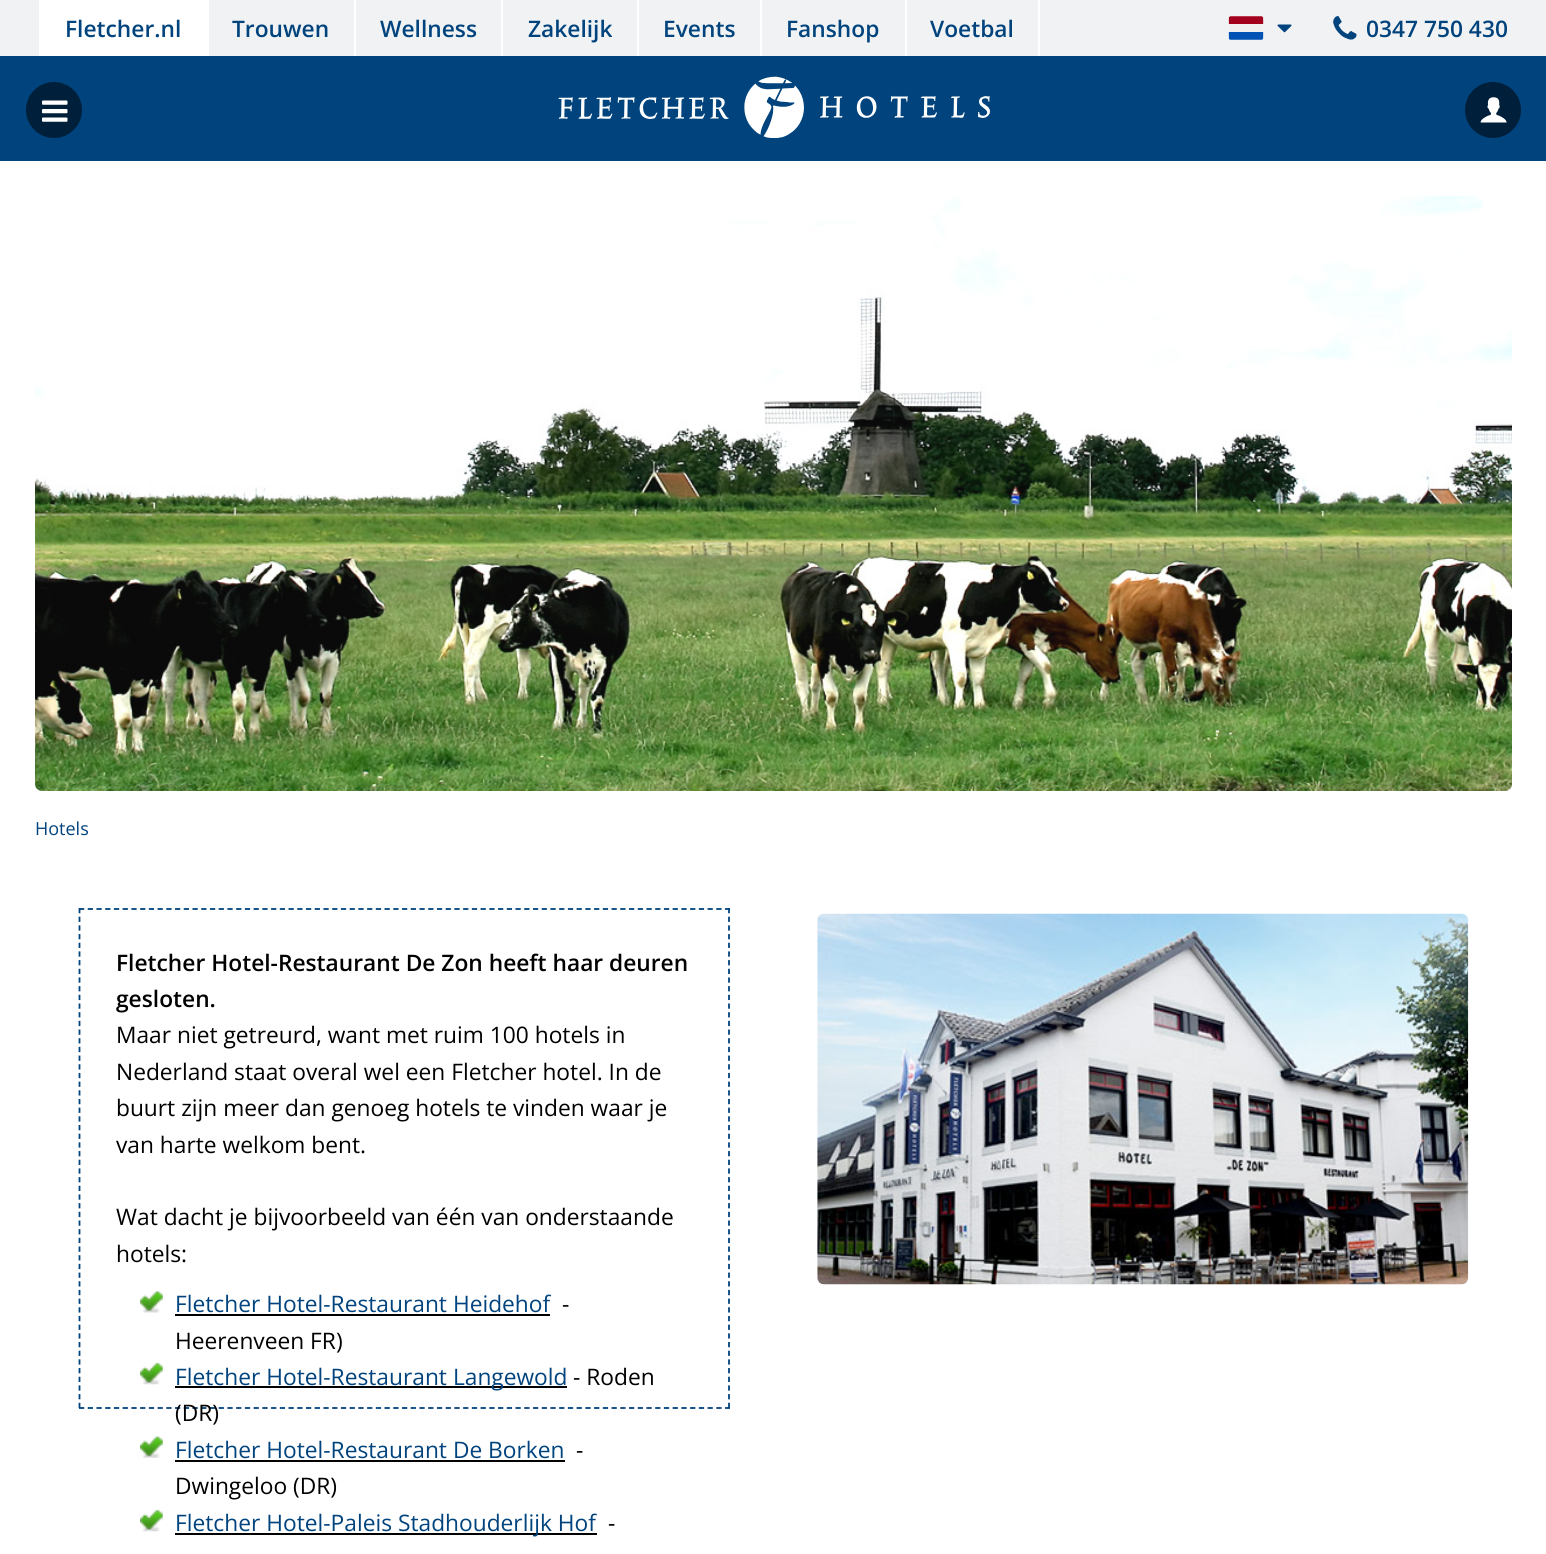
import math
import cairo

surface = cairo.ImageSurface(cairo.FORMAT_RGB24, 1546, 1554)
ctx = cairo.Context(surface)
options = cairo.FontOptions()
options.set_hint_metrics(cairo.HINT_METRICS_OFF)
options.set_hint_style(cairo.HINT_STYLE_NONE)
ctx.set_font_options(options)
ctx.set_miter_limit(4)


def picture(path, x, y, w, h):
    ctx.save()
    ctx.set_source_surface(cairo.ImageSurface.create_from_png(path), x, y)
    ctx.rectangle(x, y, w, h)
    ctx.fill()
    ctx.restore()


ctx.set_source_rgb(1, 1, 1)
ctx.paint()
ctx.set_source_rgb(0.941, 0.949, 0.953)
ctx.rectangle(0, 0, 1546, 56)
ctx.fill()
ctx.set_source_rgb(1, 1, 1)
ctx.rectangle(39, 0, 170, 56)
ctx.fill()
ctx.select_font_face("Open Sans SemiBold")
ctx.set_font_size(22.75)
ctx.set_source_rgb(0, 0.263, 0.49)
ctx.move_to(65, 37)
ctx.show_text("Fletcher.nl")
ctx.set_source_rgb(1, 1, 1)
ctx.rectangle(354, 0, 2, 56)
ctx.fill()
ctx.set_source_rgb(0, 0.263, 0.49)
ctx.move_to(232, 37)
ctx.show_text("Trouwen")
ctx.set_source_rgb(1, 1, 1)
ctx.rectangle(501, 0, 2, 56)
ctx.fill()
ctx.set_source_rgb(0, 0.263, 0.49)
ctx.move_to(380, 37)
ctx.show_text("Wellness")
ctx.set_source_rgb(1, 1, 1)
ctx.rectangle(637, 0, 2, 56)
ctx.fill()
ctx.set_source_rgb(0, 0.263, 0.49)
ctx.move_to(528, 37)
ctx.show_text("Zakelijk")
ctx.set_source_rgb(1, 1, 1)
ctx.rectangle(760, 0, 2, 56)
ctx.fill()
ctx.set_source_rgb(0, 0.263, 0.49)
ctx.move_to(663, 37)
ctx.show_text("Events")
ctx.set_source_rgb(1, 1, 1)
ctx.rectangle(905, 0, 2, 56)
ctx.fill()
ctx.set_source_rgb(0, 0.263, 0.49)
ctx.move_to(786, 37)
ctx.show_text("Fanshop")
ctx.set_source_rgb(1, 1, 1)
ctx.rectangle(1038, 0, 2, 56)
ctx.fill()
ctx.set_source_rgb(0, 0.263, 0.49)
ctx.move_to(930, 37)
ctx.show_text("Voetbal")
picture("img1.png", 1228, 16, 36, 24)
picture("img2.png", 1277, 24, 15, 9)
picture("img3.png", 1333, 16, 24, 24)
ctx.move_to(1366, 37)
ctx.show_text("0347 750 430")
ctx.rectangle(0, 56, 1546, 105)
ctx.fill()
ctx.set_source_rgb(0, 0.122, 0.227)
ctx.arc(54, 110, 28, 0, 2 * math.pi)
ctx.fill()
picture("img4.png", 42, 100, 26, 22)
picture("img5.png", 558, 76, 432, 62)
ctx.arc(1493, 110, 28, 0, 2 * math.pi)
ctx.fill()
picture("img6.png", 1480, 97, 27, 26)
picture("img7.png", 35, 196, 1477, 595)
ctx.select_font_face("Open Sans")
ctx.set_font_size(18)
ctx.set_source_rgb(0, 0.263, 0.49)
ctx.move_to(35, 835)
ctx.show_text("Hotels")
ctx.new_path()
ctx.move_to(79, 909)
ctx.line_to(730, 909)
ctx.set_line_width(1.8)
ctx.set_dash([5.25, 3.48])
ctx.stroke()
ctx.new_path()
ctx.move_to(729, 908)
ctx.line_to(729, 1409)
ctx.set_dash([5.25, 3.43])
ctx.stroke()
ctx.new_path()
ctx.move_to(79, 1408)
ctx.line_to(730, 1408)
ctx.set_dash([5.25, 3.48])
ctx.stroke()
ctx.new_path()
ctx.move_to(79.5, 908)
ctx.line_to(79.5, 1409)
ctx.set_dash([5.25, 3.43])
ctx.stroke()
ctx.select_font_face("Open Sans SemiBold")
ctx.set_font_size(22.75)
ctx.set_source_rgb(0, 0, 0)
ctx.move_to(116, 971)
ctx.show_text("Fletcher Hotel-Restaurant De Zon heeft haar deuren")
ctx.move_to(116, 1007)
ctx.show_text("gesloten.")
ctx.select_font_face("Open Sans")
ctx.move_to(116, 1043)
ctx.show_text("Maar niet getreurd, want met ruim 100 hotels in")
ctx.move_to(116, 1080)
ctx.show_text("Nederland staat overal wel een Fletcher hotel. In de")
ctx.move_to(116, 1116)
ctx.show_text("buurt zijn meer dan genoeg hotels te vinden waar je")
ctx.move_to(116, 1153)
ctx.show_text("van harte welkom bent.")
ctx.move_to(116, 1225)
ctx.show_text("Wat dacht je bijvoorbeeld van één van onderstaande")
ctx.move_to(116, 1262)
ctx.show_text("hotels:")
picture("img8.png", 140, 1291, 23, 22)
ctx.set_source_rgb(0, 0.263, 0.49)
ctx.move_to(175, 1312)
ctx.show_text("Fletcher Hotel-Restaurant Heidehof")
ctx.set_source_rgb(0, 0, 0)
ctx.rectangle(175, 1314, 375, 2)
ctx.fill()
ctx.move_to(562, 1312)
ctx.show_text("-")
ctx.move_to(175, 1349)
ctx.show_text("Heerenveen FR)")
picture("img9.png", 140, 1362, 23, 23)
ctx.rectangle(175, 1386, 392, 2)
ctx.fill()
ctx.set_source_rgb(0, 0.263, 0.49)
ctx.move_to(175, 1385)
ctx.show_text("Fletcher Hotel-Restaurant Langewold")
ctx.set_source_rgb(0, 0, 0)
ctx.move_to(573, 1385)
ctx.show_text("- Roden")
ctx.move_to(175, 1421)
ctx.show_text("(DR)")
picture("img10.png", 140, 1436, 23, 22)
ctx.set_source_rgb(0, 0.263, 0.49)
ctx.move_to(175, 1458)
ctx.show_text("Fletcher Hotel-Restaurant De Borken")
ctx.set_source_rgb(0, 0, 0)
ctx.rectangle(175, 1460, 390, 2)
ctx.fill()
ctx.move_to(576, 1458)
ctx.show_text("-")
ctx.move_to(175, 1494)
ctx.show_text("Dwingeloo (DR)")
picture("img9.png", 140, 1509, 23, 23)
ctx.rectangle(175, 1533, 422, 2)
ctx.fill()
ctx.set_source_rgb(0, 0.263, 0.49)
ctx.move_to(175, 1531)
ctx.show_text("Fletcher Hotel-Paleis Stadhouderlijk Hof")
ctx.set_source_rgb(0, 0, 0)
ctx.move_to(608, 1531)
ctx.show_text("-")
picture("img11.png", 817, 913, 652, 372)
surface.write_to_png("page.png")
